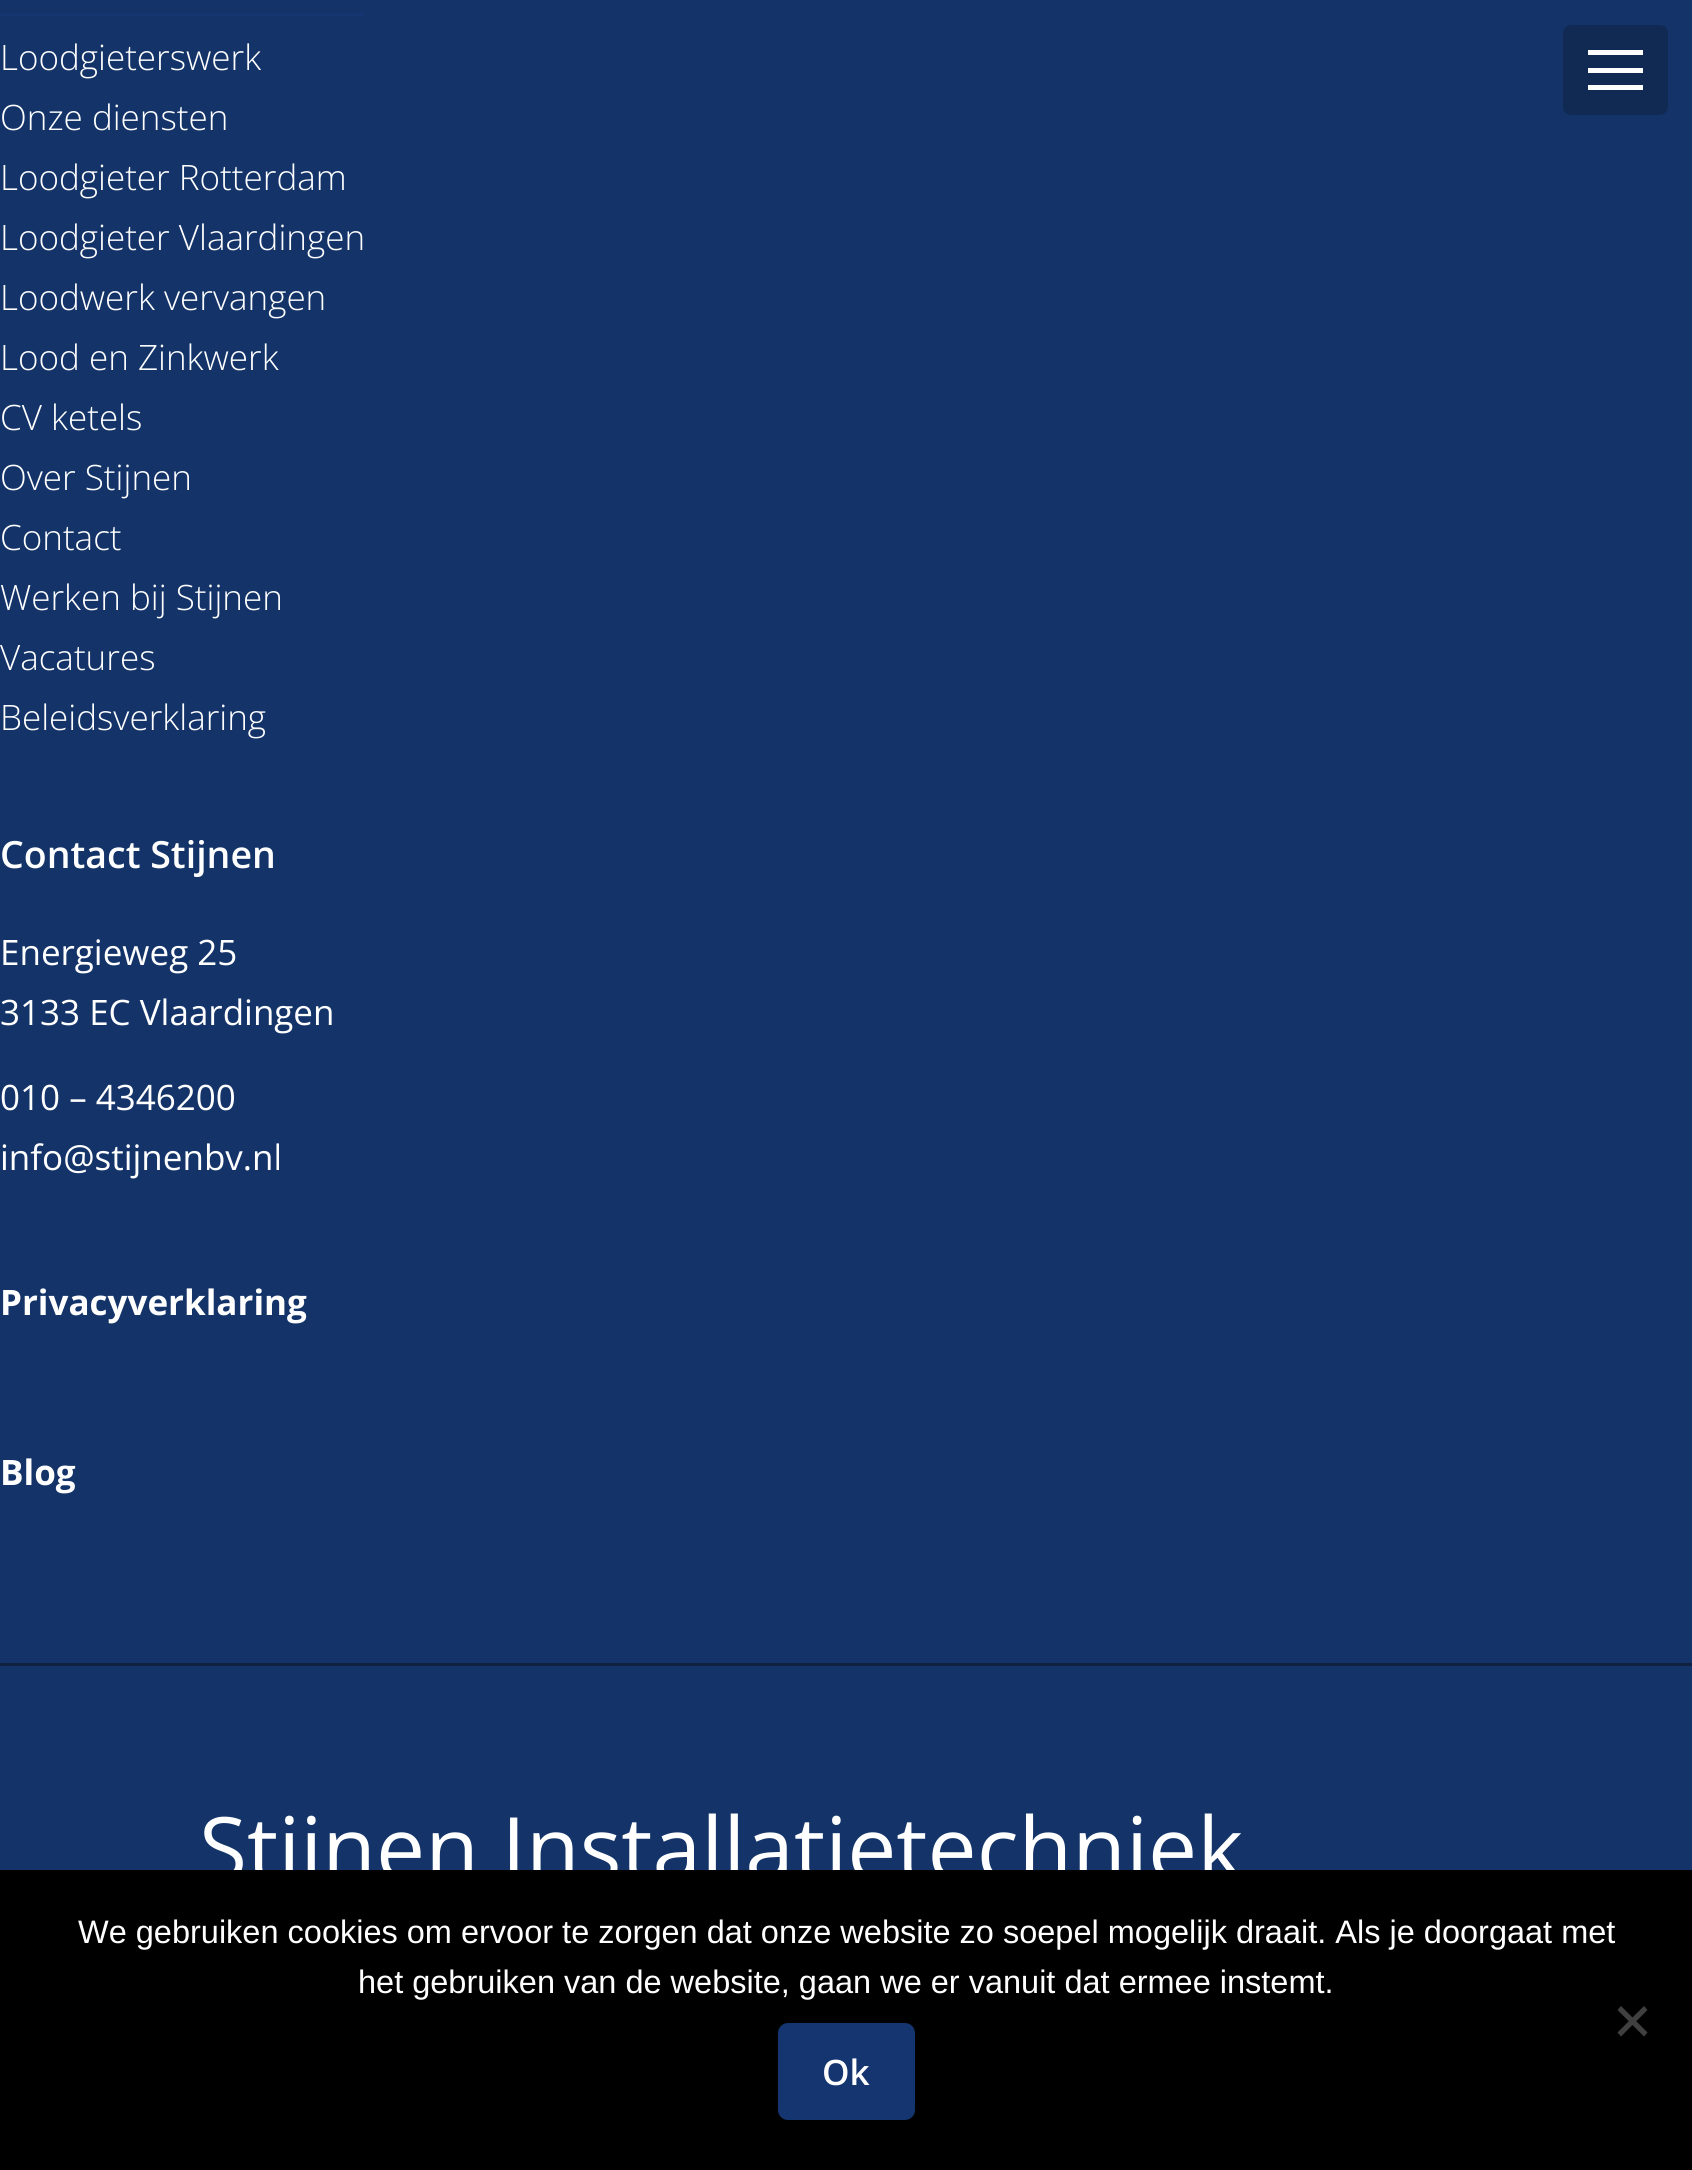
import math
import cairo

surface = cairo.ImageSurface(cairo.FORMAT_RGB24, 1692, 2170)
ctx = cairo.Context(surface)
options = cairo.FontOptions()
options.set_hint_metrics(cairo.HINT_METRICS_OFF)
options.set_hint_style(cairo.HINT_STYLE_NONE)
ctx.set_font_options(options)
ctx.set_miter_limit(4)


def round_rect(x, y, w, h, r):
    ctx.new_sub_path()
    for i, (u, v) in enumerate([(x + w - r, y + h - r), (x + r, y + h - r), (x + r, y + r), (x + w - r, y + r)]):
        ctx.arc(u, v, r, i * math.pi / 2, (i + 1) * math.pi / 2)
    ctx.close_path()


ctx.set_source_rgb(0.082, 0.204, 0.412)
ctx.paint()
ctx.set_source_rgb(0.082, 0.208, 0.439)
ctx.rectangle(0, 13, 365, 3)
ctx.fill()
ctx.select_font_face("Open Sans Light")
ctx.set_font_size(35)
ctx.set_source_rgb(1, 1, 1)
ctx.move_to(0, 70)
ctx.show_text("Loodgieterswerk")
ctx.move_to(0, 130)
ctx.show_text("Onze diensten")
ctx.move_to(0, 190)
ctx.show_text("Loodgieter Rotterdam")
ctx.move_to(0, 250)
ctx.show_text("Loodgieter Vlaardingen")
ctx.move_to(0, 310)
ctx.show_text("Loodwerk vervangen")
ctx.move_to(0, 370)
ctx.show_text("Lood en Zinkwerk")
ctx.move_to(0, 430)
ctx.show_text("CV ketels")
ctx.move_to(0, 490)
ctx.show_text("Over Stijnen")
ctx.move_to(0, 550)
ctx.show_text("Contact")
ctx.move_to(0, 610)
ctx.show_text("Werken bij Stijnen")
ctx.move_to(0, 670)
ctx.show_text("Vacatures")
ctx.move_to(0, 730)
ctx.show_text("Beleidsverklaring")
ctx.select_font_face("Open Sans SemiBold")
ctx.set_font_size(37.5)
ctx.move_to(0, 868)
ctx.show_text("Contact Stijnen")
ctx.select_font_face("Open Sans")
ctx.set_font_size(35)
ctx.move_to(0, 965)
ctx.show_text("Energieweg 25")
ctx.move_to(0, 1025)
ctx.show_text("3133 EC Vlaardingen")
ctx.move_to(0, 1110)
ctx.show_text("010 – 4346200")
ctx.move_to(0, 1170)
ctx.show_text("info@stijnenbv.nl")
ctx.select_font_face("Open Sans", cairo.FONT_SLANT_NORMAL, cairo.FONT_WEIGHT_BOLD)
ctx.move_to(0, 1315)
ctx.show_text("Privacyverklaring")
ctx.move_to(0, 1485)
ctx.show_text("Blog")
ctx.set_source_rgb(0.059, 0.125, 0.251)
ctx.rectangle(0, 1663, 1692, 3)
ctx.fill()
ctx.select_font_face("Open Sans")
ctx.set_font_size(87.5)
ctx.set_source_rgb(1, 1, 1)
ctx.move_to(199, 1880)
ctx.show_text("Stijnen Installatietechniek")
ctx.set_source_rgb(0.067, 0.165, 0.329)
round_rect(1563, 25, 105, 90, 8)
ctx.fill()
ctx.set_source_rgb(1, 1, 1)
ctx.rectangle(1588, 50, 55, 5)
ctx.fill()
ctx.rectangle(1588, 68, 55, 5)
ctx.fill()
ctx.rectangle(1588, 85, 55, 5)
ctx.fill()
ctx.set_source_rgb(0, 0, 0)
ctx.rectangle(0, 1870, 1692, 300)
ctx.fill()
ctx.select_font_face("Liberation Sans")
ctx.set_font_size(32.5)
ctx.set_source_rgb(1, 1, 1)
ctx.move_to(78, 1943)
ctx.show_text("We gebruiken cookies om ervoor te zorgen dat onze website zo soepel mogelijk draait. Als je doorgaat met")
ctx.move_to(358, 1993)
ctx.show_text("het gebruiken van de website, gaan we er vanuit dat ermee instemt.")
ctx.set_source_rgb(0.251, 0.251, 0.251)
ctx.new_path()
ctx.move_to(1644, 2006)
ctx.line_to(1647.5, 2010)
ctx.line_to(1621, 2036.5)
ctx.line_to(1617.5, 2032.5)
ctx.close_path()
ctx.fill()
ctx.new_path()
ctx.move_to(1617.5, 2010)
ctx.line_to(1621, 2006)
ctx.line_to(1647.5, 2032.5)
ctx.line_to(1644, 2036.5)
ctx.close_path()
ctx.fill()
ctx.set_source_rgb(0.082, 0.208, 0.439)
round_rect(778, 2023, 137, 97, 10)
ctx.fill()
ctx.select_font_face("Open Sans SemiBold")
ctx.set_font_size(35)
ctx.set_source_rgb(1, 1, 1)
ctx.move_to(822, 2085)
ctx.show_text("Ok")
surface.write_to_png("page.png")
